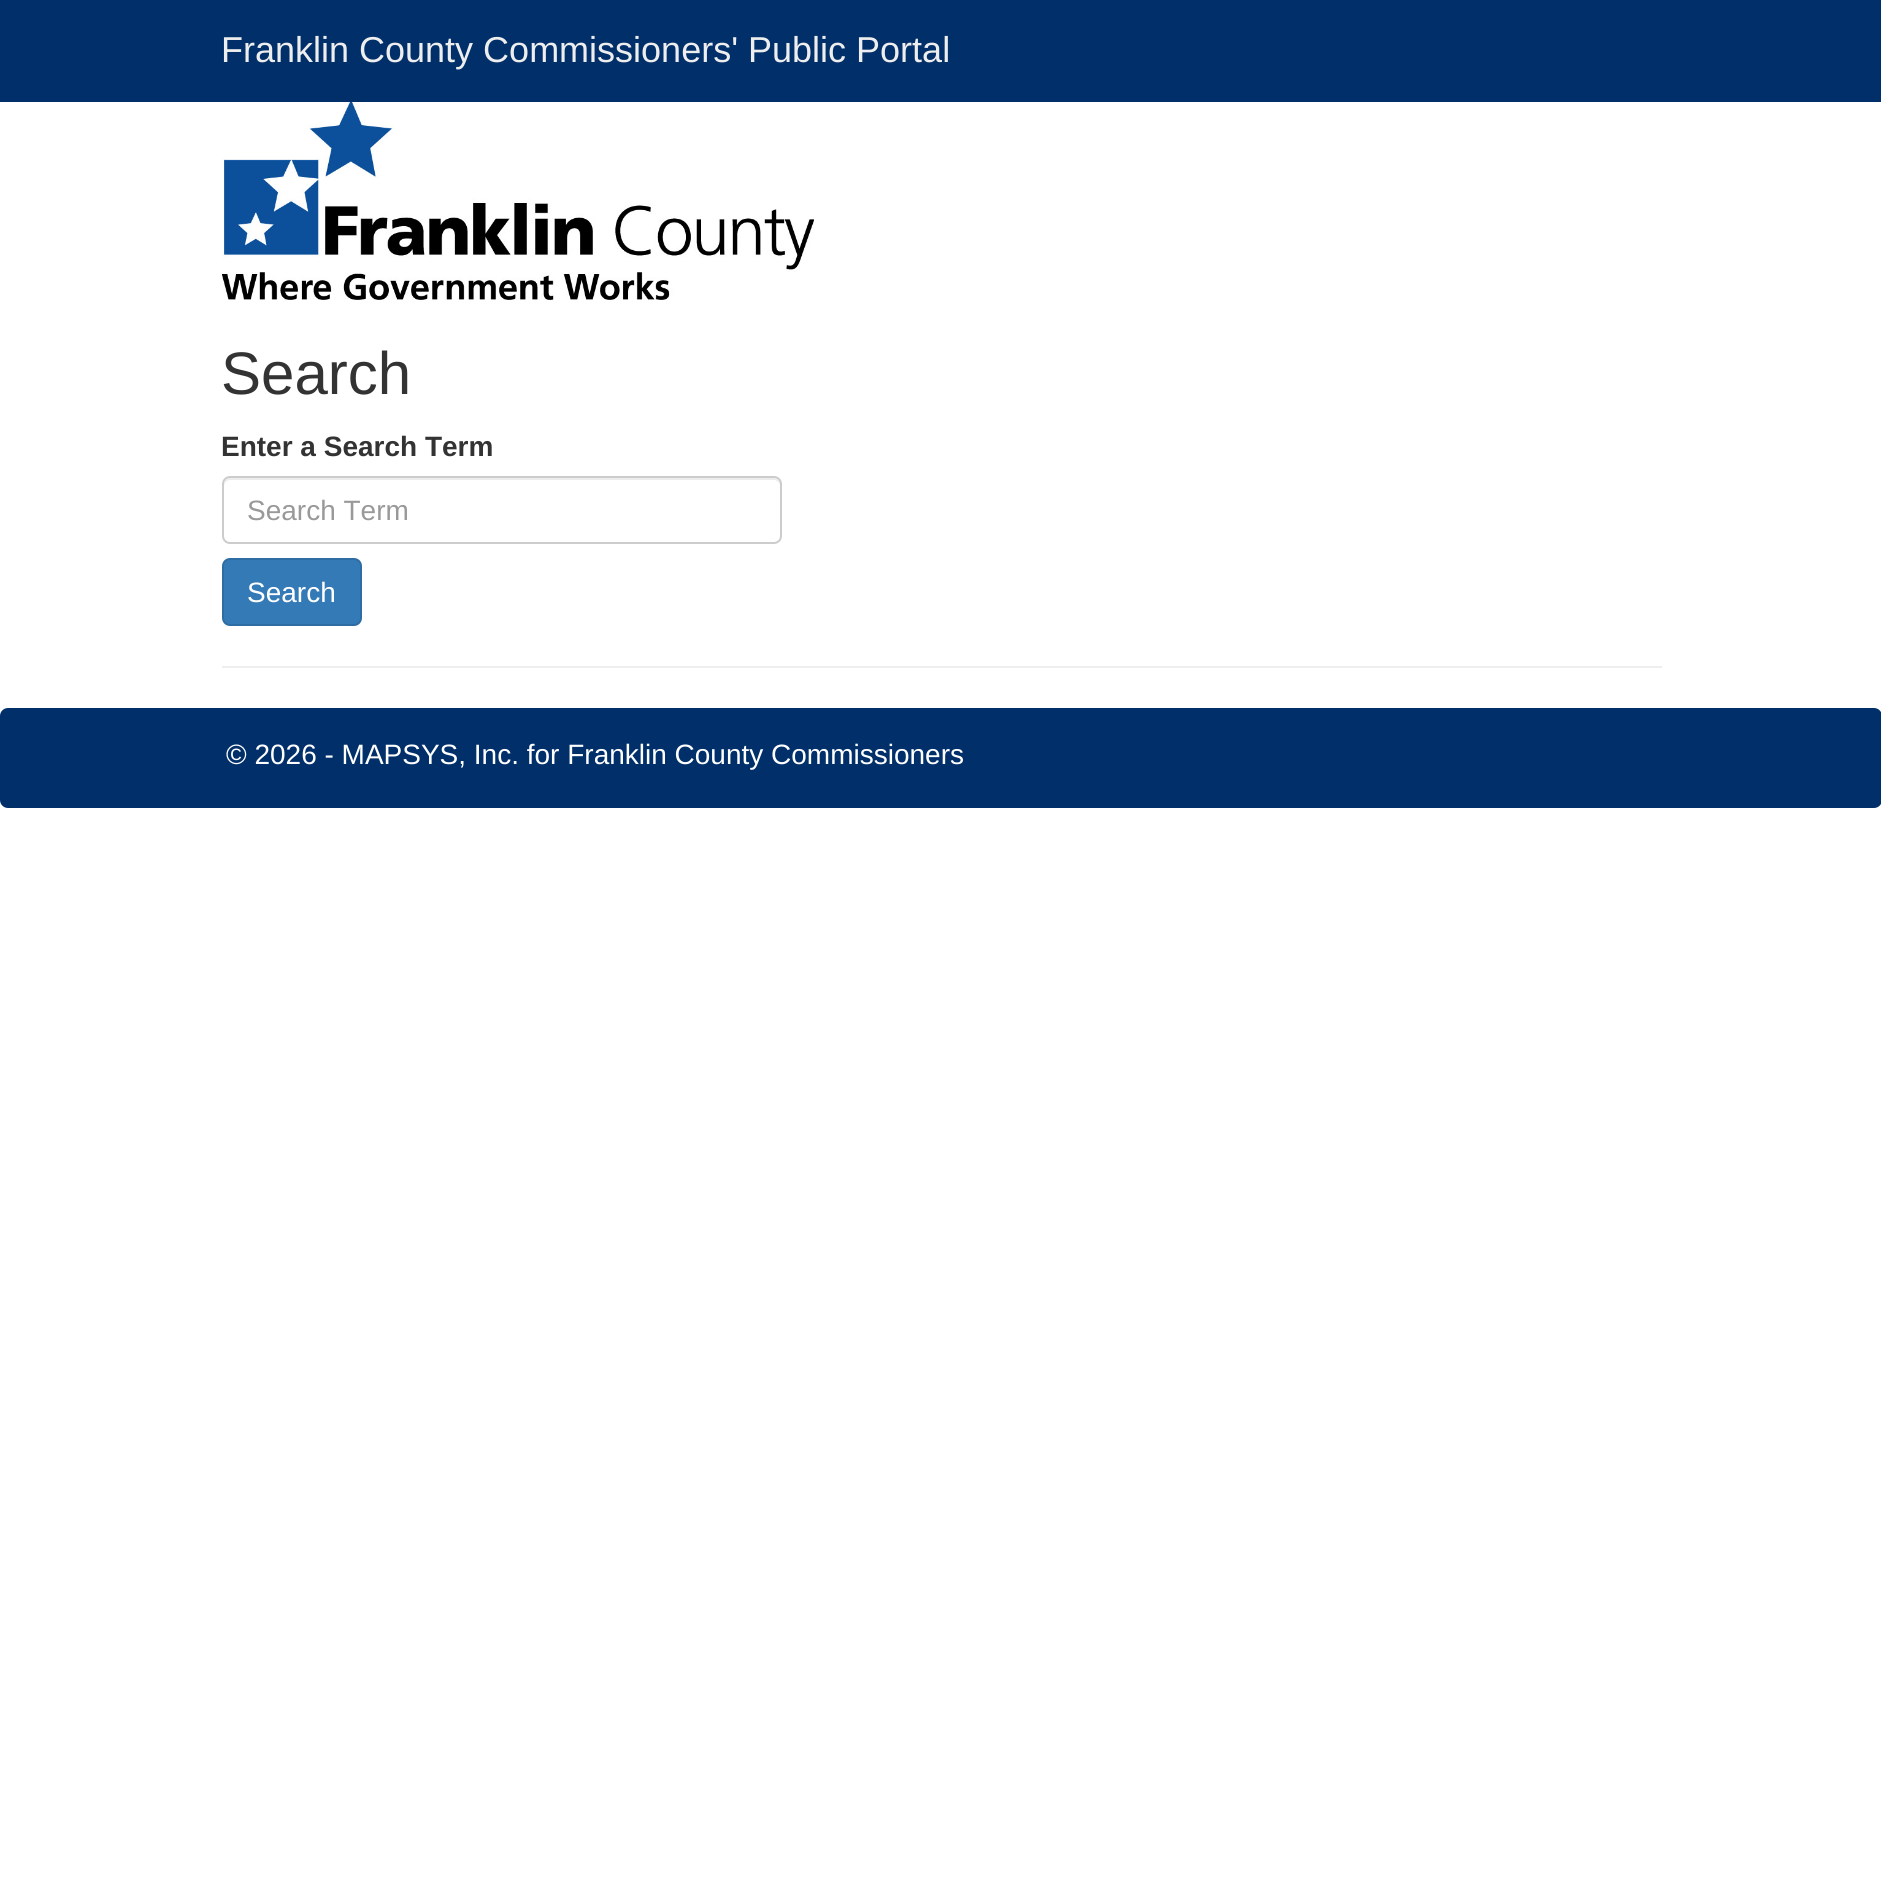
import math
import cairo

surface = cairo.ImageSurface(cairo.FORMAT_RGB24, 1881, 1904)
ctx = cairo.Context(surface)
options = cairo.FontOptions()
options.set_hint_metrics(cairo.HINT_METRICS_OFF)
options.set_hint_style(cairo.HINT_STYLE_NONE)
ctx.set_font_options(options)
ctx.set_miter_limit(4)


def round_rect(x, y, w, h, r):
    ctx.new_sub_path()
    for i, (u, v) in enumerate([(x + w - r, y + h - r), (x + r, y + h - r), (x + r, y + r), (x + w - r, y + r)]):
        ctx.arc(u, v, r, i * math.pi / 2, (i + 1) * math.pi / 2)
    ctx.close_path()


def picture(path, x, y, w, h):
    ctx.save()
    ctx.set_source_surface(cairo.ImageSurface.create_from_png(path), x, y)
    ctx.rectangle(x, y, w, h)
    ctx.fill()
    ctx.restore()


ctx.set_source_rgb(1, 1, 1)
ctx.paint()
ctx.set_source_rgb(0.004, 0.184, 0.412)
ctx.rectangle(0, 0, 1881, 102)
ctx.fill()
ctx.select_font_face("Liberation Sans")
ctx.set_font_size(36)
ctx.set_source_rgb(0.933, 0.933, 0.933)
ctx.move_to(221, 62)
ctx.show_text("Franklin County Commissioners' Public Portal")
picture("img1.png", 222, 102, 592, 198)
ctx.set_font_size(60)
ctx.set_source_rgb(0.2, 0.2, 0.2)
ctx.move_to(221, 394)
ctx.show_text("Search")
ctx.select_font_face("Liberation Sans", cairo.FONT_SLANT_NORMAL, cairo.FONT_WEIGHT_BOLD)
ctx.set_font_size(28)
ctx.move_to(221, 456)
ctx.show_text("Enter a Search Term")
ctx.set_source_rgb(0.925, 0.925, 0.925)
ctx.new_path()
ctx.move_to(230, 480)
ctx.line_to(774, 480)
ctx.curve_to(777, 480, 780, 483, 780, 486)
ctx.line_to(780, 484)
ctx.curve_to(780, 481, 777, 478, 774, 478)
ctx.line_to(230, 478)
ctx.curve_to(227, 478, 224, 481, 224, 484)
ctx.line_to(224, 486)
ctx.curve_to(224, 483, 227, 480, 230, 480)
ctx.close_path()
ctx.fill()
round_rect(223, 477, 558, 66, 7)
ctx.set_source_rgb(0.8, 0.8, 0.8)
ctx.stroke()
ctx.select_font_face("Liberation Sans")
ctx.set_source_rgb(0.6, 0.6, 0.6)
ctx.move_to(247, 520)
ctx.show_text("Search Term")
ctx.set_source_rgb(0.2, 0.478, 0.718)
round_rect(223, 559, 138, 66, 7)
ctx.fill_preserve()
ctx.set_source_rgb(0.18, 0.427, 0.643)
ctx.stroke()
ctx.set_source_rgb(1, 1, 1)
ctx.move_to(247, 602)
ctx.show_text("Search")
ctx.set_source_rgb(0.933, 0.933, 0.933)
ctx.rectangle(222, 666, 1440, 2)
ctx.fill()
ctx.set_source_rgb(0.004, 0.184, 0.412)
round_rect(0, 708, 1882, 100, 8)
ctx.fill()
ctx.set_source_rgb(1, 1, 1)
ctx.move_to(226, 764)
ctx.show_text("© 2026 - MAPSYS, Inc. for Franklin County Commissioners")
surface.write_to_png("page.png")
